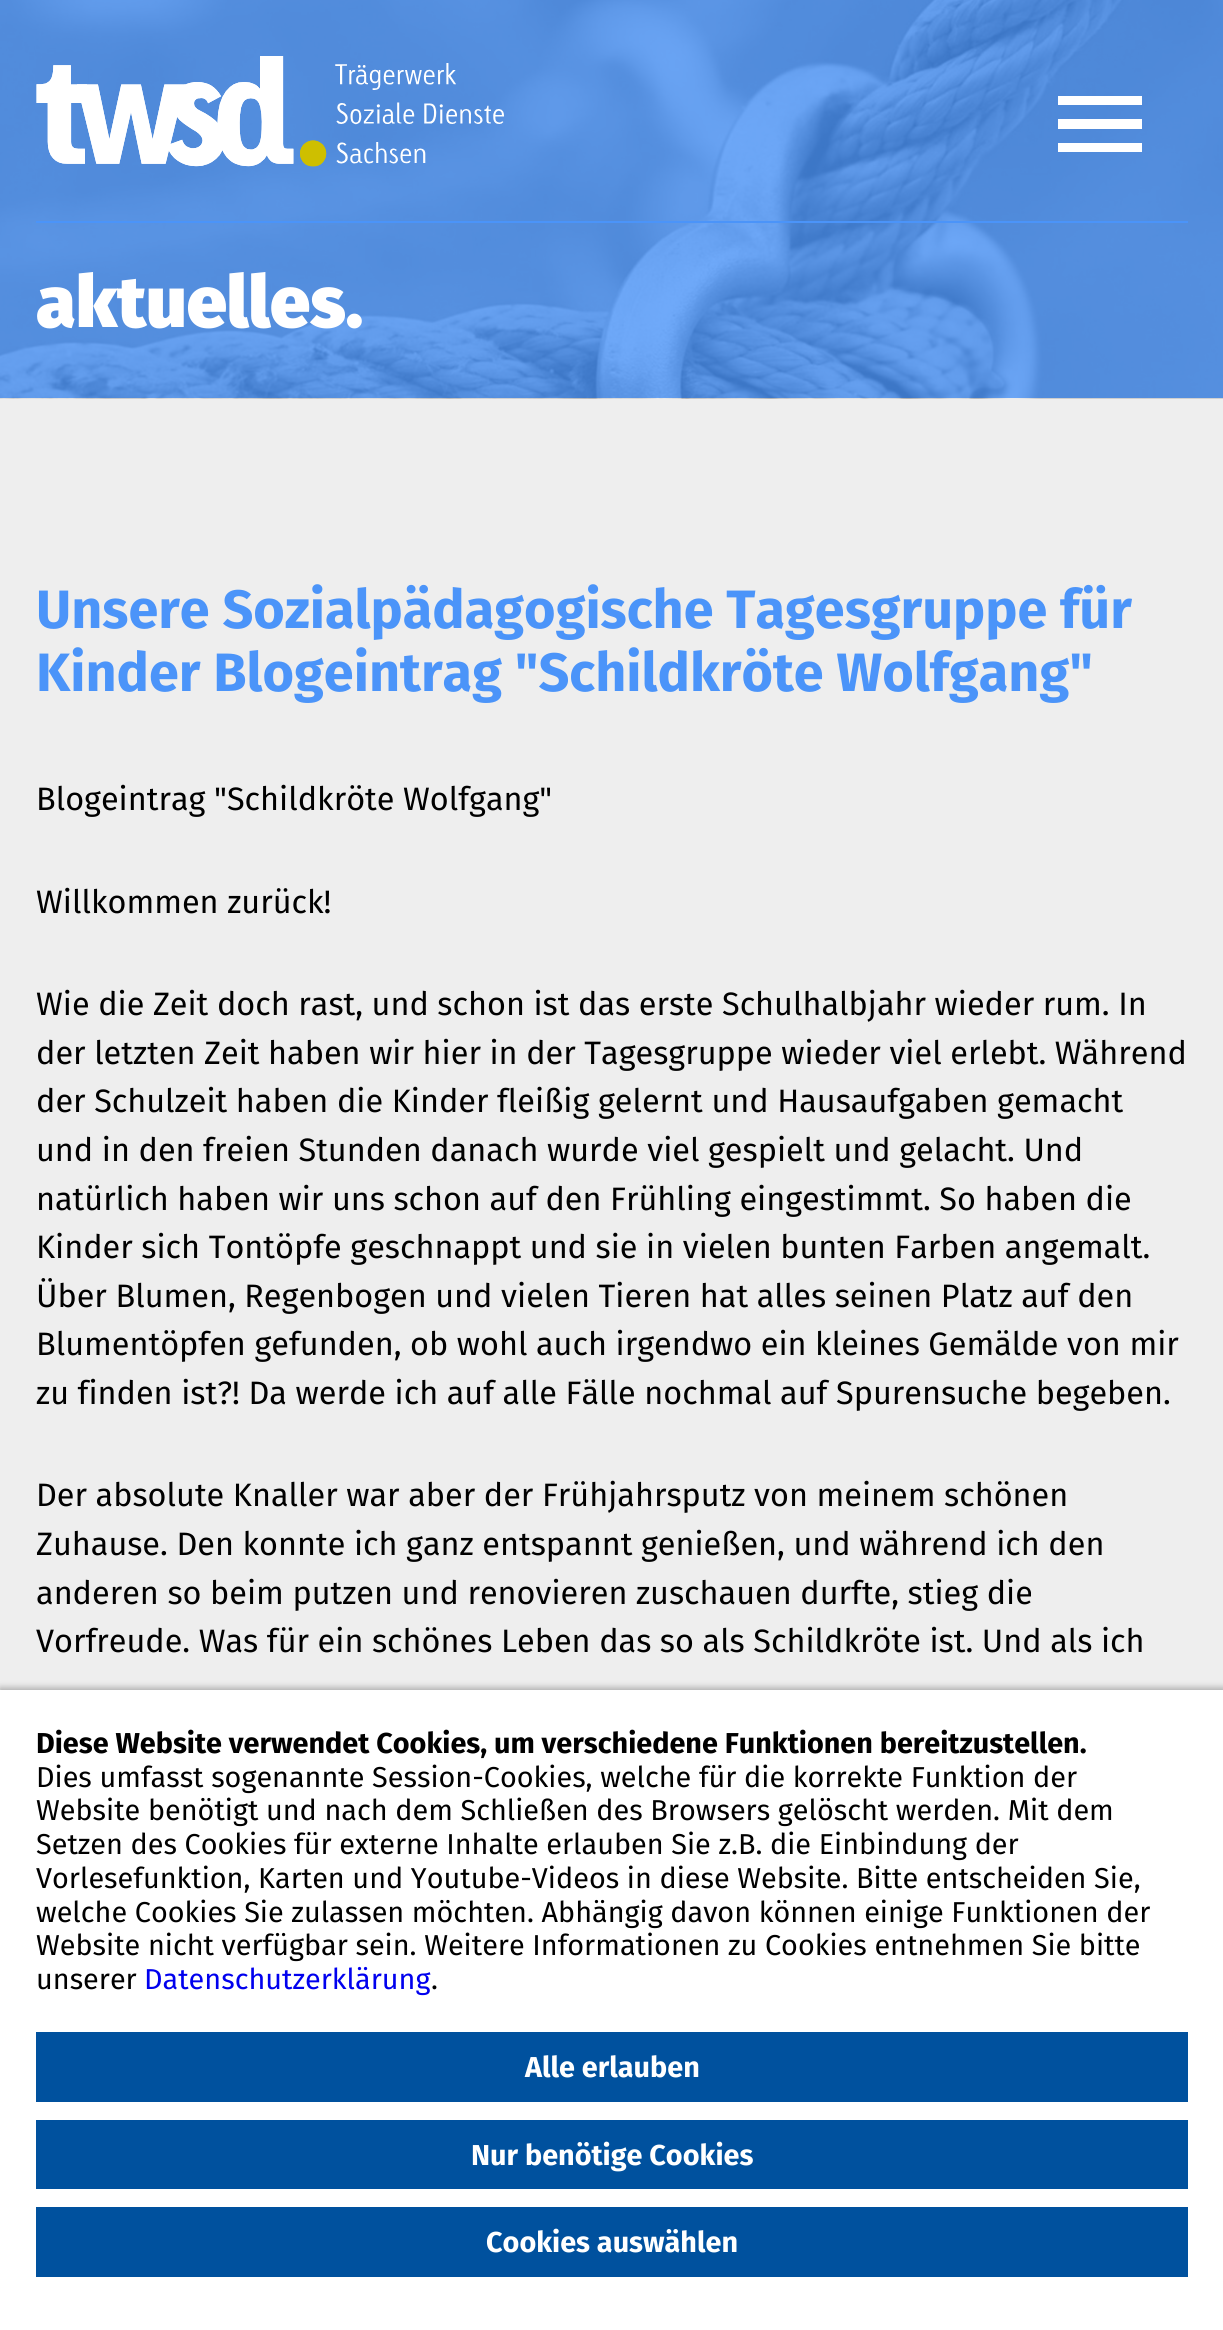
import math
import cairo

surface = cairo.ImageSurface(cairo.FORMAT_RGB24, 1223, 2330)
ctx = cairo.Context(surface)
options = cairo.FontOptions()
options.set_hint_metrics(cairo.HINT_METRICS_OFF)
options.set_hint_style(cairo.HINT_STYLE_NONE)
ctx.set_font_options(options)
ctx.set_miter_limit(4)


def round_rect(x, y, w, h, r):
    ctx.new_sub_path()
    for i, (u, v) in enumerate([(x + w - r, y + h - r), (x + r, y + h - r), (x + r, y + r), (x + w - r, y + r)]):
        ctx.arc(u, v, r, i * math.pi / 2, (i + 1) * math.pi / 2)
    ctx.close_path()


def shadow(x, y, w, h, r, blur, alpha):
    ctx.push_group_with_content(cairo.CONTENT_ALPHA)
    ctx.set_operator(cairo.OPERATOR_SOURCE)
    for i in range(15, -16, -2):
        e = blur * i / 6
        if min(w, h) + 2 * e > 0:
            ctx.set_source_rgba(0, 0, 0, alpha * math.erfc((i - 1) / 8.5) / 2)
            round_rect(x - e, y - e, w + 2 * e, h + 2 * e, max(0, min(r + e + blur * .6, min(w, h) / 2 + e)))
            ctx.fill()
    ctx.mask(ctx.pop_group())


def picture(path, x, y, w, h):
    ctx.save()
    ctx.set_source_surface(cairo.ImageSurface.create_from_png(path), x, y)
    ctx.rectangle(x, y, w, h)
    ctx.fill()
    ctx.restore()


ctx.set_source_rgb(0.933, 0.933, 0.933)
ctx.paint()
picture("img1.png", 0, 0, 1223, 399)
ctx.set_source_rgb(1, 1, 1)
ctx.new_path()
ctx.move_to(1058, 152)
ctx.line_to(1142, 152)
ctx.line_to(1142, 143)
ctx.line_to(1058, 143)
ctx.close_path()
ctx.move_to(1058, 129)
ctx.line_to(1142, 129)
ctx.line_to(1142, 119)
ctx.line_to(1058, 119)
ctx.close_path()
ctx.move_to(1058, 96)
ctx.line_to(1058, 105)
ctx.line_to(1142, 105)
ctx.line_to(1142, 96)
ctx.close_path()
ctx.fill()
ctx.set_source_rgb(0.294, 0.58, 0.973)
ctx.rectangle(36, 221, 1152, 2)
ctx.fill()
picture("img2.png", 36, 56, 468, 111)
ctx.select_font_face("Fira Sans Black")
ctx.set_font_size(72)
ctx.set_source_rgb(1, 1, 1)
ctx.move_to(36, 327)
ctx.show_text("aktuelles.")
ctx.select_font_face("Fira Sans", cairo.FONT_SLANT_NORMAL, cairo.FONT_WEIGHT_BOLD)
ctx.set_font_size(54)
ctx.set_source_rgb(0.294, 0.58, 0.973)
ctx.move_to(36, 628)
ctx.show_text("Unsere Sozialpädagogische Tagesgruppe für")
ctx.move_to(36, 691)
ctx.show_text("Kinder Blogeintrag \"Schildkröte Wolfgang\"")
ctx.select_font_face("Fira Sans")
ctx.set_font_size(32.4)
ctx.set_source_rgb(0, 0, 0)
ctx.move_to(36, 810)
ctx.show_text("Blogeintrag \"Schildkröte Wolfgang\"")
ctx.move_to(36, 913)
ctx.show_text("Willkommen zurück!")
ctx.move_to(36, 1015)
ctx.show_text("Wie die Zeit doch rast, und schon ist das erste Schulhalbjahr wieder rum. In")
ctx.move_to(36, 1064)
ctx.show_text("der letzten Zeit haben wir hier in der Tagesgruppe wieder viel erlebt. Während")
ctx.move_to(36, 1112)
ctx.show_text("der Schulzeit haben die Kinder fleißig gelernt und Hausaufgaben gemacht")
ctx.move_to(36, 1161)
ctx.show_text("und in den freien Stunden danach wurde viel gespielt und gelacht. Und")
ctx.move_to(36, 1210)
ctx.show_text("natürlich haben wir uns schon auf den Frühling eingestimmt. So haben die")
ctx.move_to(36, 1258)
ctx.show_text("Kinder sich Tontöpfe geschnappt und sie in vielen bunten Farben angemalt.")
ctx.move_to(36, 1307)
ctx.show_text("Über Blumen, Regenbogen und vielen Tieren hat alles seinen Platz auf den")
ctx.move_to(36, 1355)
ctx.show_text("Blumentöpfen gefunden, ob wohl auch irgendwo ein kleines Gemälde von mir")
ctx.move_to(36, 1404)
ctx.show_text("zu finden ist?! Da werde ich auf alle Fälle nochmal auf Spurensuche begeben.")
ctx.move_to(36, 1506)
ctx.show_text("Der absolute Knaller war aber der Frühjahrsputz von meinem schönen")
ctx.move_to(36, 1555)
ctx.show_text("Zuhause. Den konnte ich ganz entspannt genießen, und während ich den")
ctx.move_to(36, 1604)
ctx.show_text("anderen so beim putzen und renovieren zuschauen durfte, stieg die")
ctx.move_to(36, 1652)
ctx.show_text("Vorfreude. Was für ein schönes Leben das so als Schildkröte ist. Und als ich")
ctx.set_source_rgb(0, 0, 0)
shadow(0, 1688, 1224, 641, 0, 3.5, 0.3)
ctx.set_source_rgb(1, 1, 1)
ctx.rectangle(0, 1690, 1223, 640)
ctx.fill()
ctx.select_font_face("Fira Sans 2", cairo.FONT_SLANT_NORMAL, cairo.FONT_WEIGHT_BOLD)
ctx.set_font_size(28.8)
ctx.set_source_rgb(0, 0, 0)
ctx.move_to(36, 1753)
ctx.show_text("Diese Website verwendet Cookies, um verschiedene Funktionen bereitzustellen.")
ctx.select_font_face("Fira Sans")
ctx.move_to(36, 1787)
ctx.show_text("Dies umfasst sogenannte Session-Cookies, welche für die korrekte Funktion der")
ctx.move_to(36, 1820)
ctx.show_text("Website benötigt und nach dem Schließen des Browsers gelöscht werden. Mit dem")
ctx.move_to(36, 1854)
ctx.show_text("Setzen des Cookies für externe Inhalte erlauben Sie z.B. die Einbindung der")
ctx.move_to(36, 1888)
ctx.show_text("Vorlesefunktion, Karten und Youtube-Videos in diese Website. Bitte entscheiden Sie,")
ctx.move_to(36, 1922)
ctx.show_text("welche Cookies Sie zulassen möchten. Abhängig davon können einige Funktionen der")
ctx.move_to(36, 1955)
ctx.show_text("Website nicht verfügbar sein. Weitere Informationen zu Cookies entnehmen Sie bitte")
ctx.move_to(36, 1989)
ctx.show_text("unserer")
ctx.set_source_rgb(0, 0, 0.933)
ctx.move_to(144, 1989)
ctx.show_text("Datenschutzerklärung")
ctx.set_source_rgb(0, 0, 0)
ctx.move_to(431, 1989)
ctx.show_text(".")
ctx.set_source_rgb(0, 0.318, 0.62)
ctx.rectangle(36, 2032, 1152, 70)
ctx.fill()
ctx.select_font_face("Fira Sans 2", cairo.FONT_SLANT_NORMAL, cairo.FONT_WEIGHT_BOLD)
ctx.set_source_rgb(1, 1, 1)
ctx.move_to(525, 2077)
ctx.show_text("Alle erlauben")
ctx.set_source_rgb(0, 0.318, 0.62)
ctx.rectangle(36, 2120, 1152, 69)
ctx.fill()
ctx.set_source_rgb(1, 1, 1)
ctx.move_to(471, 2165)
ctx.show_text("Nur benötige Cookies")
ctx.set_source_rgb(0, 0.318, 0.62)
ctx.rectangle(36, 2207, 1152, 70)
ctx.fill()
ctx.set_source_rgb(1, 1, 1)
ctx.move_to(486, 2252)
ctx.show_text("Cookies auswählen")
surface.write_to_png("page.png")
